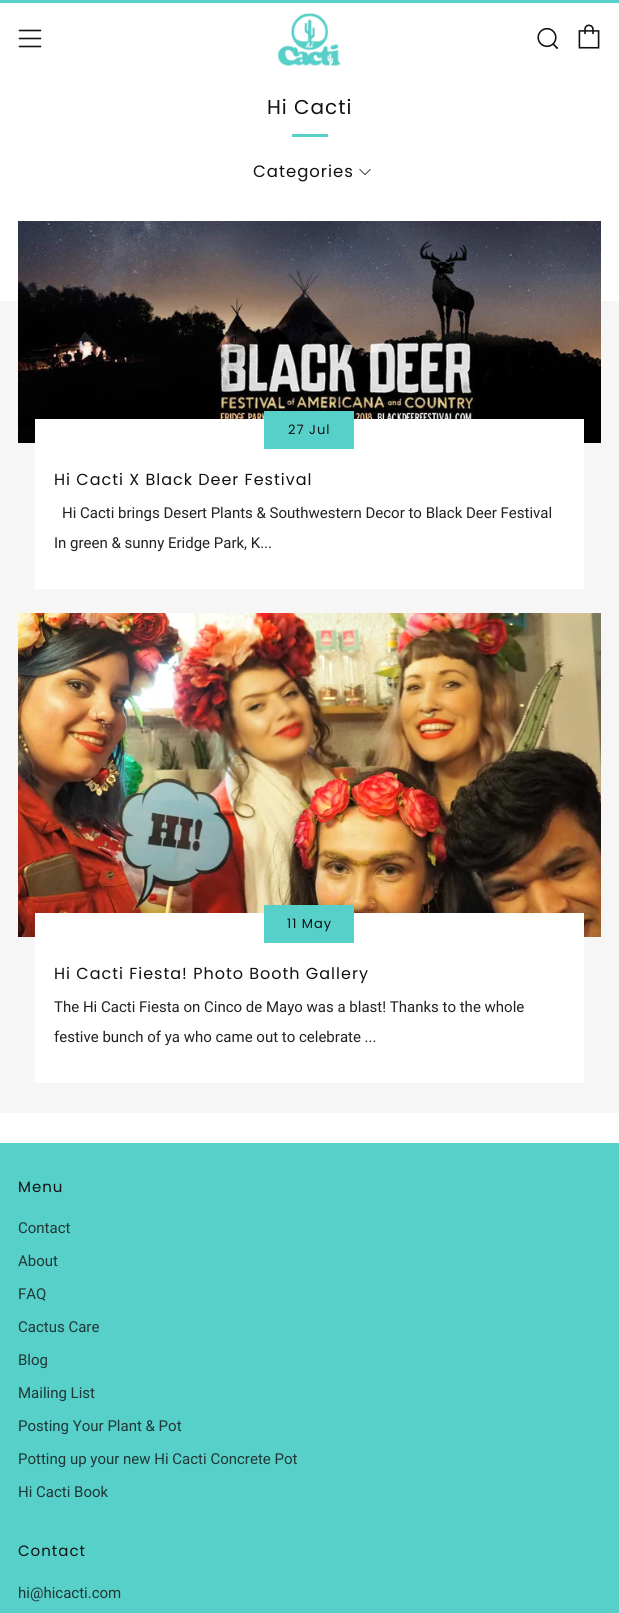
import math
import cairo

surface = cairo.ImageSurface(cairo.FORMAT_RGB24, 619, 1613)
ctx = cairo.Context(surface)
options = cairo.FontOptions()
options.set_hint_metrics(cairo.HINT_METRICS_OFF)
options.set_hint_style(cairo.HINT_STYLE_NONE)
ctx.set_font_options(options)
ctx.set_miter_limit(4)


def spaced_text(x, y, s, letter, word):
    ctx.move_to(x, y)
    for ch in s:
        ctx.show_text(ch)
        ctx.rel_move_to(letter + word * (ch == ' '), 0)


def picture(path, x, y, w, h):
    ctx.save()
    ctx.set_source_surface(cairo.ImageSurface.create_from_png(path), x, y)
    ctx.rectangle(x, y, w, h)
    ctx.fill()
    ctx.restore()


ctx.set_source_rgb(1, 1, 1)
ctx.paint()
ctx.set_source_rgb(0.341, 0.816, 0.788)
ctx.rectangle(0, 0, 619, 3)
ctx.fill()
picture("img1.png", 18, 29, 24, 19)
picture("img2.png", 277, 13, 64, 54)
picture("img3.png", 537, 27, 22, 23)
picture("img4.png", 578, 24, 22, 25)
ctx.select_font_face("Poppins")
ctx.set_font_size(20)
ctx.set_source_rgb(0.067, 0.067, 0.067)
spaced_text(267, 114, "Hi Cacti", 1, 0)
ctx.set_source_rgb(0.341, 0.816, 0.788)
ctx.rectangle(292, 134, 36, 3)
ctx.fill()
ctx.set_font_size(16.5)
ctx.set_source_rgb(0.067, 0.067, 0.067)
spaced_text(253, 177, "Categories", 1, 0)
picture("img5.png", 359, 168, 12, 7)
ctx.set_source_rgb(0.961, 0.961, 0.961)
ctx.rectangle(0, 301, 619, 812)
ctx.fill()
picture("img6.png", 18, 221, 583, 222)
ctx.set_source_rgb(1, 1, 1)
ctx.rectangle(35, 419, 549, 170)
ctx.fill()
ctx.set_source_rgb(0.341, 0.816, 0.788)
ctx.rectangle(264, 411, 90, 38)
ctx.fill()
ctx.set_font_size(13)
ctx.set_source_rgb(0.067, 0.067, 0.067)
spaced_text(288, 434, "27 Jul", 1, 0)
ctx.set_font_size(16)
spaced_text(54, 485, "Hi Cacti X Black Deer Festival", 1, 0)
ctx.select_font_face("Roboto")
ctx.set_font_size(15)
ctx.set_source_rgb(0.129, 0.129, 0.129)
ctx.move_to(62, 518)
ctx.show_text("Hi Cacti brings Desert Plants & Southwestern Decor to Black Deer Festival")
ctx.move_to(54, 548)
ctx.show_text("In green & sunny Eridge Park, K...")
picture("img7.png", 18, 613, 583, 324)
ctx.set_source_rgb(1, 1, 1)
ctx.rectangle(35, 913, 549, 170)
ctx.fill()
ctx.set_source_rgb(0.341, 0.816, 0.788)
ctx.rectangle(264, 905, 90, 38)
ctx.fill()
ctx.select_font_face("Poppins")
ctx.set_font_size(13)
ctx.set_source_rgb(0.067, 0.067, 0.067)
spaced_text(287, 928, "11 May", 1, 0)
ctx.set_font_size(16)
spaced_text(54, 979, "Hi Cacti Fiesta! Photo Booth Gallery", 1, 0)
ctx.select_font_face("Roboto")
ctx.set_font_size(15)
ctx.set_source_rgb(0.129, 0.129, 0.129)
ctx.move_to(54, 1012)
ctx.show_text("The Hi Cacti Fiesta on Cinco de Mayo was a blast! Thanks to the whole")
ctx.move_to(54, 1042)
ctx.show_text("festive bunch of ya who came out to celebrate ...")
ctx.set_source_rgb(0.341, 0.816, 0.788)
ctx.rectangle(0, 1143, 619, 470)
ctx.fill()
ctx.select_font_face("Poppins")
ctx.set_source_rgb(0.067, 0.067, 0.067)
spaced_text(18, 1192, "Menu", 1, 0)
ctx.select_font_face("Roboto")
ctx.set_source_rgb(0.122, 0.216, 0.212)
ctx.move_to(18, 1233)
ctx.show_text("Contact")
ctx.move_to(18, 1266)
ctx.show_text("About")
ctx.move_to(18, 1299)
ctx.show_text("FAQ")
ctx.move_to(18, 1332)
ctx.show_text("Cactus Care")
ctx.move_to(18, 1365)
ctx.show_text("Blog")
ctx.move_to(18, 1398)
ctx.show_text("Mailing List")
ctx.move_to(18, 1431)
ctx.show_text("Posting Your Plant & Pot")
ctx.move_to(18, 1464)
ctx.show_text("Potting up your new Hi Cacti Concrete Pot")
ctx.move_to(18, 1497)
ctx.show_text("Hi Cacti Book")
ctx.select_font_face("Poppins")
ctx.set_source_rgb(0.067, 0.067, 0.067)
spaced_text(18, 1556, "Contact", 1, 0)
ctx.select_font_face("Roboto")
ctx.set_source_rgb(0.122, 0.216, 0.212)
ctx.move_to(18, 1598)
ctx.show_text("hi@hicacti.com")
surface.write_to_png("page.png")
